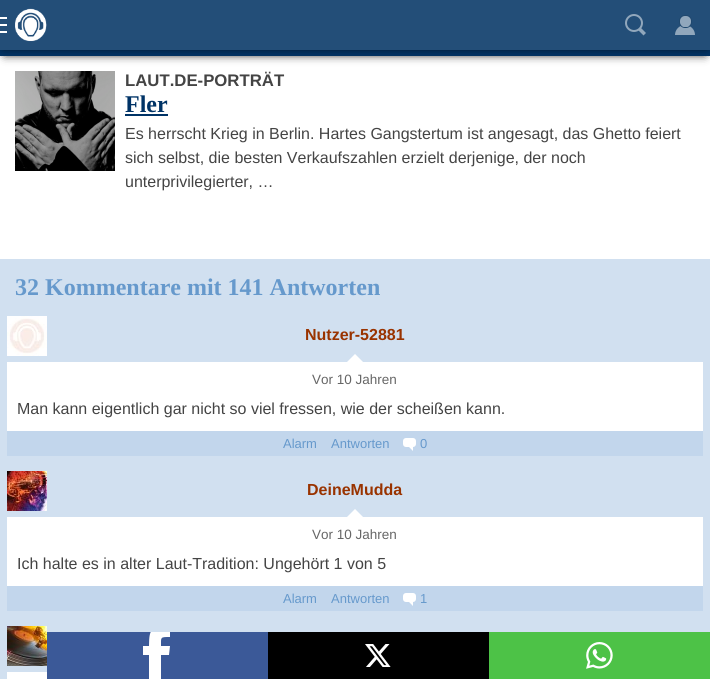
import math
import cairo

surface = cairo.ImageSurface(cairo.FORMAT_RGB24, 710, 679)
ctx = cairo.Context(surface)
options = cairo.FontOptions()
options.set_hint_metrics(cairo.HINT_METRICS_OFF)
options.set_hint_style(cairo.HINT_STYLE_NONE)
ctx.set_font_options(options)
ctx.set_miter_limit(4)


def round_rect(x, y, w, h, r):
    ctx.new_sub_path()
    for i, (u, v) in enumerate([(x + w - r, y + h - r), (x + r, y + h - r), (x + r, y + r), (x + w - r, y + r)]):
        ctx.arc(u, v, r, i * math.pi / 2, (i + 1) * math.pi / 2)
    ctx.close_path()


def shadow(x, y, w, h, r, blur, alpha):
    ctx.push_group_with_content(cairo.CONTENT_ALPHA)
    ctx.set_operator(cairo.OPERATOR_SOURCE)
    for i in range(15, -16, -2):
        e = blur * i / 6
        if min(w, h) + 2 * e > 0:
            ctx.set_source_rgba(0, 0, 0, alpha * math.erfc((i - 1) / 8.5) / 2)
            round_rect(x - e, y - e, w + 2 * e, h + 2 * e, max(0, min(r + e + blur * .6, min(w, h) / 2 + e)))
            ctx.fill()
    ctx.mask(ctx.pop_group())


def picture(path, x, y, w, h):
    ctx.save()
    ctx.set_source_surface(cairo.ImageSurface.create_from_png(path), x, y)
    ctx.rectangle(x, y, w, h)
    ctx.fill()
    ctx.restore()


ctx.set_source_rgb(0.82, 0.878, 0.941)
ctx.paint()
ctx.set_source_rgb(1, 1, 1)
ctx.rectangle(0, 56, 710, 203)
ctx.fill()
ctx.set_source_rgb(0, 0, 0)
shadow(5, 24, 700, 30, 0, 5, 1)
ctx.set_source_rgb(0, 0.2, 0.4)
ctx.rectangle(0, 50, 710, 6)
ctx.fill()
ctx.set_source_rgb(0, 0, 0)
shadow(3, 3, 704, 44, 0, 5, 1)
ctx.set_source_rgb(0.137, 0.306, 0.471)
ctx.rectangle(0, 0, 710, 50)
ctx.fill()
picture("img1.png", 15, 8, 32, 34)
ctx.set_source_rgb(1, 1, 1)
ctx.rectangle(0, 17, 7, 2)
ctx.fill()
ctx.rectangle(0, 31, 7, 2)
ctx.fill()
ctx.rectangle(0, 24, 7, 2)
ctx.fill()
ctx.set_source_rgb(0.569, 0.655, 0.737)
ctx.new_path()
ctx.move_to(646, 33)
ctx.line_to(643.5, 35.5)
ctx.line_to(638, 30)
ctx.line_to(640.5, 27.5)
ctx.close_path()
ctx.fill()
ctx.arc(634, 23, 8, 0, 2 * math.pi)
ctx.stroke()
ctx.set_fill_rule(cairo.FILL_RULE_EVEN_ODD)
ctx.new_path()
ctx.move_to(685, 25)
ctx.curve_to(690.5, 25, 695, 29.5, 695, 35)
ctx.line_to(675, 35)
ctx.curve_to(675, 29.5, 679.5, 25, 685, 25)
ctx.close_path()
ctx.move_to(685, 35)
ctx.close_path()
ctx.fill()
round_rect(679.5, 15.5, 12, 12, 5.5)
ctx.set_source_rgb(0.125, 0.282, 0.431)
ctx.set_line_width(1)
ctx.stroke()
ctx.set_source_rgb(0.569, 0.655, 0.737)
round_rect(680, 16, 11, 11, 5)
ctx.fill()
picture("img2.png", 15, 71, 100, 100)
ctx.select_font_face("Liberation Sans", cairo.FONT_SLANT_NORMAL, cairo.FONT_WEIGHT_BOLD)
ctx.set_font_size(16.75)
ctx.set_source_rgb(0.267, 0.267, 0.267)
ctx.move_to(125, 86)
ctx.show_text("LAUT.DE-PORTRÄT")
ctx.select_font_face("Liberation Serif", cairo.FONT_SLANT_NORMAL, cairo.FONT_WEIGHT_BOLD)
ctx.set_font_size(24)
ctx.set_source_rgb(0, 0.2, 0.4)
ctx.move_to(125, 112)
ctx.show_text("Fler")
ctx.rectangle(125, 114, 43, 2)
ctx.fill()
ctx.select_font_face("Liberation Sans")
ctx.set_font_size(16)
ctx.set_source_rgb(0.267, 0.267, 0.267)
ctx.move_to(125, 139)
ctx.show_text("Es herrscht Krieg in Berlin. Hartes Gangstertum ist angesagt, das Ghetto feiert")
ctx.move_to(125, 163)
ctx.show_text("sich selbst, die besten Verkaufszahlen erzielt derjenige, der noch")
ctx.move_to(125, 187)
ctx.show_text("unterprivilegierter, …")
ctx.select_font_face("Liberation Serif", cairo.FONT_SLANT_NORMAL, cairo.FONT_WEIGHT_BOLD)
ctx.set_font_size(24)
ctx.set_source_rgb(0.4, 0.6, 0.8)
ctx.move_to(15, 295)
ctx.show_text("32 Kommentare mit 141 Antworten")
picture("img3.png", 7, 316, 40, 40)
ctx.set_source_rgb(1, 1, 1)
ctx.rectangle(7, 362, 696, 69)
ctx.fill()
ctx.select_font_face("Liberation Sans", cairo.FONT_SLANT_NORMAL, cairo.FONT_WEIGHT_BOLD)
ctx.set_font_size(16)
ctx.set_source_rgb(0.6, 0.2, 0)
ctx.move_to(305, 340)
ctx.show_text("Nutzer-52881")
ctx.set_source_rgb(1, 1, 1)
ctx.set_fill_rule(cairo.FILL_RULE_WINDING)
ctx.new_path()
ctx.move_to(363, 362)
ctx.line_to(347, 362)
ctx.line_to(355, 354)
ctx.close_path()
ctx.fill()
ctx.select_font_face("Liberation Sans")
ctx.set_font_size(13.5)
ctx.set_source_rgb(0.4, 0.4, 0.4)
ctx.move_to(312, 384)
ctx.show_text("Vor 10 Jahren")
ctx.set_font_size(16)
ctx.set_source_rgb(0.267, 0.267, 0.267)
ctx.move_to(17, 414)
ctx.show_text("Man kann eigentlich gar nicht so viel fressen, wie der scheißen kann.")
ctx.set_source_rgb(0.761, 0.839, 0.922)
ctx.rectangle(7, 431, 696, 25)
ctx.fill()
ctx.set_font_size(13)
ctx.set_source_rgb(0.4, 0.6, 0.8)
ctx.move_to(283, 448)
ctx.show_text("Alarm")
ctx.move_to(331, 448)
ctx.show_text("Antworten")
ctx.set_source_rgb(1, 1, 1)
round_rect(403, 438, 13, 9, 3)
ctx.fill()
ctx.new_path()
ctx.move_to(413, 447)
ctx.line_to(413, 451)
ctx.line_to(409, 447)
ctx.close_path()
ctx.fill()
ctx.set_source_rgb(0.4, 0.6, 0.8)
ctx.move_to(420, 448)
ctx.show_text("0")
picture("img4.png", 7, 471, 40, 40)
ctx.set_source_rgb(1, 1, 1)
ctx.rectangle(7, 517, 696, 69)
ctx.fill()
ctx.select_font_face("Liberation Sans", cairo.FONT_SLANT_NORMAL, cairo.FONT_WEIGHT_BOLD)
ctx.set_font_size(16)
ctx.set_source_rgb(0.6, 0.2, 0)
ctx.move_to(307, 495)
ctx.show_text("DeineMudda")
ctx.set_source_rgb(1, 1, 1)
ctx.new_path()
ctx.move_to(363, 517)
ctx.line_to(347, 517)
ctx.line_to(355, 509)
ctx.close_path()
ctx.fill()
ctx.select_font_face("Liberation Sans")
ctx.set_font_size(13.5)
ctx.set_source_rgb(0.4, 0.4, 0.4)
ctx.move_to(312, 539)
ctx.show_text("Vor 10 Jahren")
ctx.set_font_size(16)
ctx.set_source_rgb(0.267, 0.267, 0.267)
ctx.move_to(17, 569)
ctx.show_text("Ich halte es in alter Laut-Tradition: Ungehört 1 von 5")
ctx.set_source_rgb(0.761, 0.839, 0.922)
ctx.rectangle(7, 586, 696, 25)
ctx.fill()
ctx.set_font_size(13)
ctx.set_source_rgb(0.4, 0.6, 0.8)
ctx.move_to(283, 603)
ctx.show_text("Alarm")
ctx.move_to(331, 603)
ctx.show_text("Antworten")
ctx.set_source_rgb(1, 1, 1)
round_rect(403, 593, 13, 9, 3)
ctx.fill()
ctx.new_path()
ctx.move_to(413, 602)
ctx.line_to(413, 606)
ctx.line_to(409, 602)
ctx.close_path()
ctx.fill()
ctx.set_source_rgb(0.4, 0.6, 0.8)
ctx.move_to(420, 603)
ctx.show_text("1")
picture("img5.png", 7, 626, 40, 40)
ctx.set_source_rgb(1, 1, 1)
ctx.rectangle(7, 672, 40, 7)
ctx.fill()
ctx.set_source_rgb(0.231, 0.349, 0.596)
ctx.rectangle(47, 632, 221, 47)
ctx.fill()
ctx.save()
ctx.rectangle(122, 632, 71, 47)
ctx.clip()
ctx.set_source_rgb(1, 1, 1)
ctx.set_fill_rule(cairo.FILL_RULE_EVEN_ODD)
ctx.new_path()
ctx.move_to(161, 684)
ctx.line_to(161, 655)
ctx.line_to(169, 655)
ctx.line_to(170, 646)
ctx.line_to(161, 646)
ctx.curve_to(161, 637, 160, 637, 170, 637)
ctx.line_to(170, 627)
ctx.curve_to(152, 627, 149, 627, 149, 646)
ctx.line_to(143, 646)
ctx.line_to(143, 655)
ctx.line_to(149, 655)
ctx.line_to(149, 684)
ctx.close_path()
ctx.fill()
ctx.restore()
ctx.set_source_rgb(0, 0, 0)
ctx.rectangle(268, 632, 221, 47)
ctx.fill()
picture("img6.png", 365, 644, 26, 23)
ctx.set_source_rgb(0.302, 0.761, 0.278)
ctx.rectangle(489, 632, 221, 47)
ctx.fill()
picture("img7.png", 586, 642, 27, 27)
surface.write_to_png("page.png")
